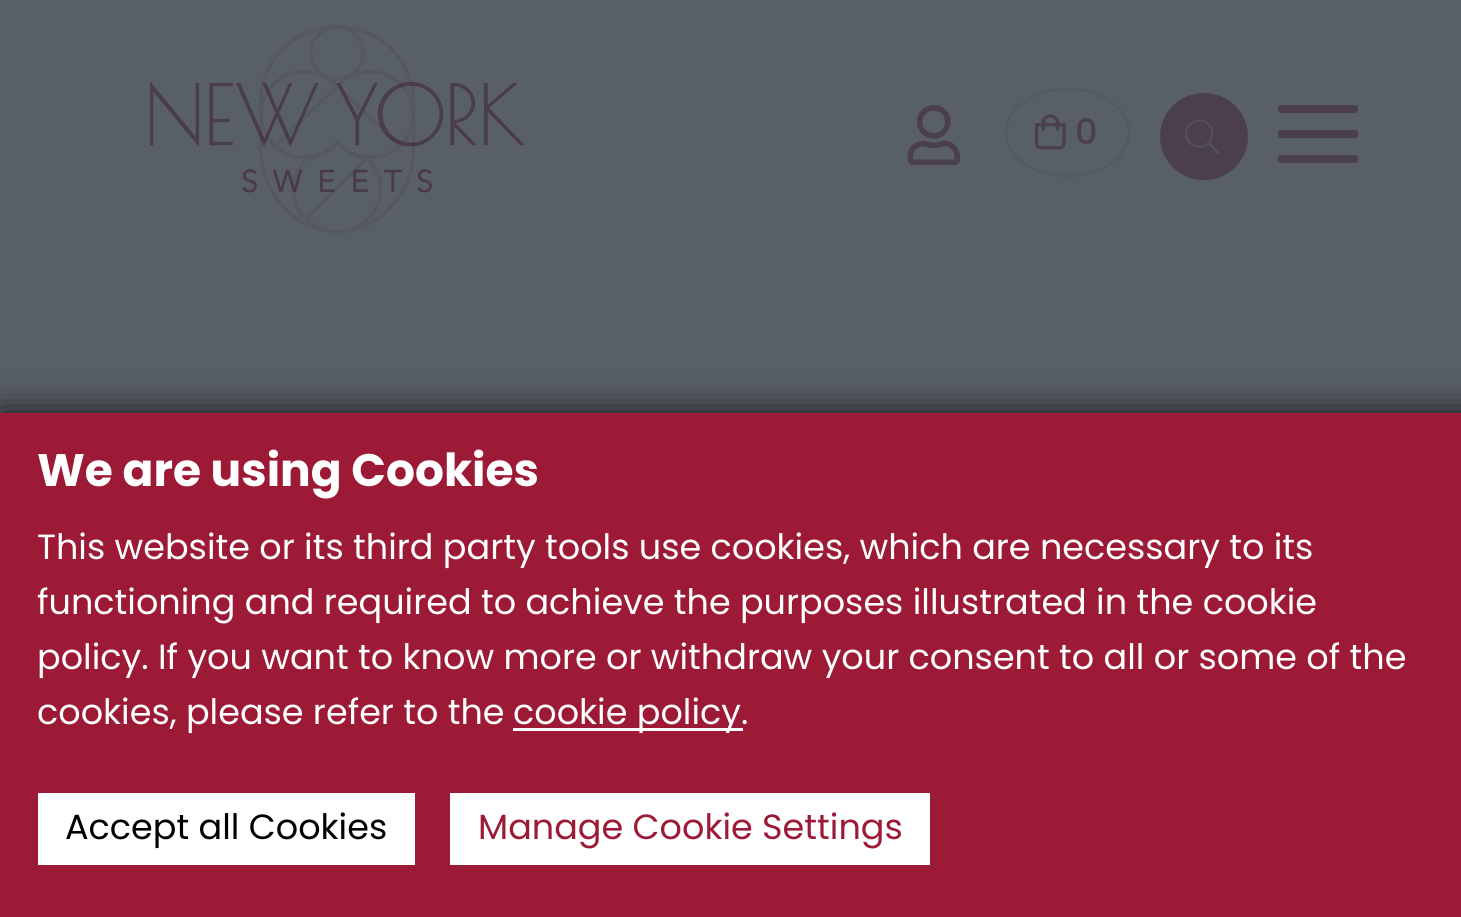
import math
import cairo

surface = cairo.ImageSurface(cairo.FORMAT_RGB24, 1461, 917)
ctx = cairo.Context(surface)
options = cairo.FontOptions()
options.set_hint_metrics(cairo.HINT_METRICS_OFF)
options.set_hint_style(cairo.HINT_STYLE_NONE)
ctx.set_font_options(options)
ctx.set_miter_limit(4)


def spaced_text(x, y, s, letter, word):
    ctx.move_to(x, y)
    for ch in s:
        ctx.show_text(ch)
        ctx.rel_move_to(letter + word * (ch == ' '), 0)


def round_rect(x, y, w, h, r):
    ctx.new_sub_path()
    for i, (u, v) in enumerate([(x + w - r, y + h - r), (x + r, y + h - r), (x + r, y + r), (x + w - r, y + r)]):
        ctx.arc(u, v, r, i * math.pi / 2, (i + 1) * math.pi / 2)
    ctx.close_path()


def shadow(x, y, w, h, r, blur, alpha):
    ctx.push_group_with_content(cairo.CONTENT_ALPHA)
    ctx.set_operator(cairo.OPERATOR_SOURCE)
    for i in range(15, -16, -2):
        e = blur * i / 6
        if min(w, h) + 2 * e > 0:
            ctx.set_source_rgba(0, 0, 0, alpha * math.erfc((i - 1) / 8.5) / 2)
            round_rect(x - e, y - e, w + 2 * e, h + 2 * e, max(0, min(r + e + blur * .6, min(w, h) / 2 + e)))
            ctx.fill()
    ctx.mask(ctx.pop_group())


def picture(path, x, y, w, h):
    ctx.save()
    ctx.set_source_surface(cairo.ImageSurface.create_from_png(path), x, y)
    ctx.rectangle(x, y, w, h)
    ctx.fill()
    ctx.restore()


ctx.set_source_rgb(0.349, 0.373, 0.404)
ctx.paint()
picture("img1.png", 150, 25, 375, 208)
picture("img2.png", 907, 105, 53, 60)
ctx.new_path()
ctx.move_to(1067.5, 89)
ctx.curve_to(1101.5, 89, 1129, 108.5, 1129, 132.5)
ctx.curve_to(1129, 156.5, 1101.5, 176, 1067.5, 176)
ctx.curve_to(1033.5, 176, 1006, 156.5, 1006, 132.5)
ctx.curve_to(1006, 108.5, 1033.5, 89, 1067.5, 89)
ctx.close_path()
ctx.set_source_rgb(0.329, 0.353, 0.384)
ctx.set_line_width(2.5)
ctx.stroke()
picture("img3.png", 1035, 114, 31, 36)
ctx.select_font_face("Poppins Medium")
ctx.set_font_size(35)
ctx.set_source_rgb(0.294, 0.247, 0.294)
spaced_text(1075, 144, "0", -1, 0)
round_rect(1160, 93, 88, 87, 43.5)
ctx.fill()
picture("img4.png", 1185, 119, 35, 36)
round_rect(1278, 105, 80, 8, 2.5)
ctx.fill()
round_rect(1278, 130, 80, 8, 2.5)
ctx.fill()
round_rect(1278, 155, 80, 8, 2.5)
ctx.fill()
ctx.set_source_rgb(0.071, 0.071, 0.071)
shadow(0, 413, 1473, 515, 0, 17.5, 1)
ctx.set_source_rgb(0.612, 0.102, 0.208)
ctx.rectangle(0, 413, 1461, 504)
ctx.fill()
ctx.select_font_face("Poppins", cairo.FONT_SLANT_NORMAL, cairo.FONT_WEIGHT_BOLD)
ctx.set_font_size(45.5)
ctx.set_source_rgb(1, 1, 1)
ctx.move_to(37, 486)
ctx.show_text("We are using Cookies")
ctx.select_font_face("Poppins")
ctx.set_font_size(35)
ctx.move_to(37, 559)
ctx.show_text("This website or its third party tools use cookies, which are necessary to its")
ctx.move_to(37, 614)
ctx.show_text("functioning and required to achieve the purposes illustrated in the cookie")
ctx.move_to(37, 669)
ctx.show_text("policy. If you want to know more or withdraw your consent to all or some of the")
ctx.move_to(37, 724)
ctx.show_text("cookies, please refer to the")
ctx.rectangle(513, 728, 230, 3)
ctx.fill()
ctx.move_to(513, 724)
ctx.show_text("cookie policy.")
ctx.rectangle(38, 793, 377, 72)
ctx.fill()
ctx.set_source_rgb(0, 0, 0)
ctx.move_to(65, 839)
ctx.show_text("Accept all Cookies")
ctx.set_source_rgb(1, 1, 1)
ctx.rectangle(450, 793, 480, 72)
ctx.fill()
ctx.set_source_rgb(0.612, 0.102, 0.208)
ctx.move_to(478, 839)
ctx.show_text("Manage Cookie Settings")
surface.write_to_png("page.png")
